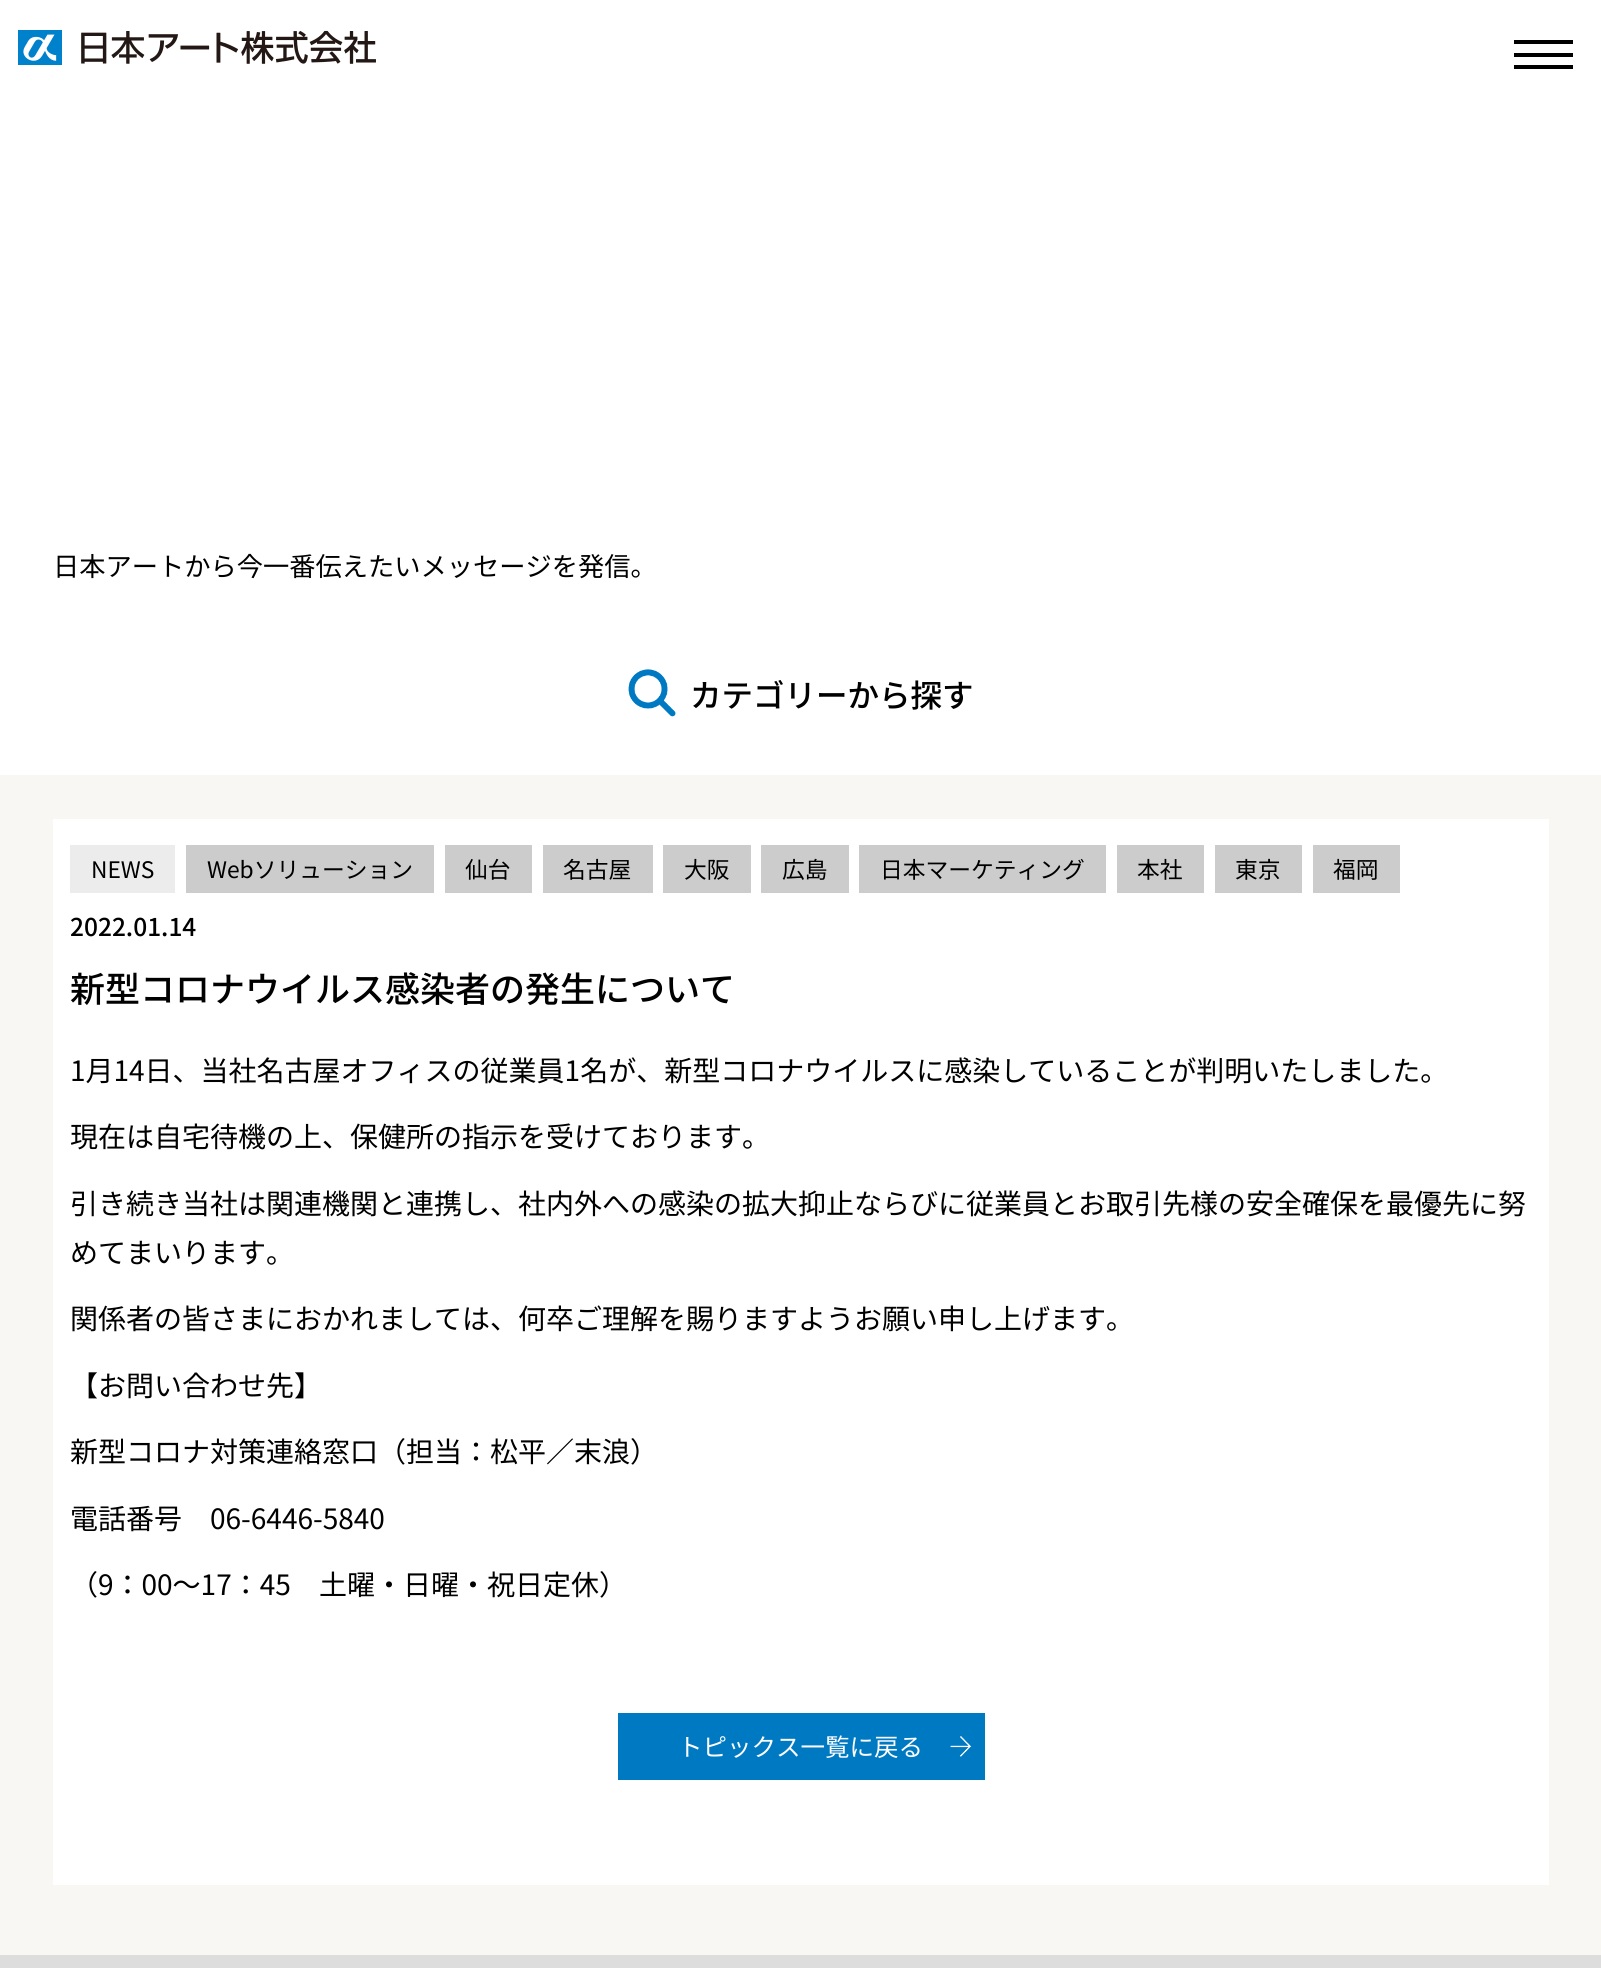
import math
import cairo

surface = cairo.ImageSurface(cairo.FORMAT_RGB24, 1601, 1968)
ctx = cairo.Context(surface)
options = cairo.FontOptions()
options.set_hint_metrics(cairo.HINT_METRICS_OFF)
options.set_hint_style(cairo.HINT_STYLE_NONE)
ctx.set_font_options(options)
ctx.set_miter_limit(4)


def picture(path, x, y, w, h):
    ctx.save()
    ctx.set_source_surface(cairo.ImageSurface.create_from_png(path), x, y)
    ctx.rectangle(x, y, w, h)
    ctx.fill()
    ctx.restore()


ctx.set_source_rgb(1, 1, 1)
ctx.paint()
picture("img1.png", 18, 30, 358, 35)
ctx.set_source_rgb(0, 0, 0)
ctx.rectangle(1514, 40, 59, 4)
ctx.fill()
ctx.rectangle(1514, 53, 59, 4)
ctx.fill()
ctx.rectangle(1514, 65, 59, 4)
ctx.fill()
ctx.select_font_face("Noto Sans JP")
ctx.set_font_size(26.25)
ctx.move_to(53, 576)
ctx.show_text("日本アートから今一番伝えたいメッセージを発信。")
picture("img2.png", 628, 669, 48, 48)
ctx.select_font_face("Noto Sans JP Medium")
ctx.set_font_size(31.5)
ctx.move_to(690, 707)
ctx.show_text("カテゴリーから探す")
ctx.set_source_rgb(0.969, 0.965, 0.957)
ctx.rectangle(0, 775, 1601, 1180)
ctx.fill()
ctx.set_source_rgb(1, 1, 1)
ctx.rectangle(53, 819, 1496, 1066)
ctx.fill()
ctx.set_source_rgb(0.922, 0.922, 0.922)
ctx.rectangle(70, 845, 105, 48)
ctx.fill()
ctx.select_font_face("Noto Sans JP")
ctx.set_font_size(22.75)
ctx.set_source_rgb(0, 0, 0)
ctx.move_to(91, 878)
ctx.show_text("NEWS")
ctx.set_source_rgb(0.8, 0.8, 0.8)
ctx.rectangle(186, 845, 248, 48)
ctx.fill()
ctx.set_source_rgb(0, 0, 0)
ctx.move_to(207, 878)
ctx.show_text("Webソリューション")
ctx.set_source_rgb(0.8, 0.8, 0.8)
ctx.rectangle(445, 845, 87, 48)
ctx.fill()
ctx.set_source_rgb(0, 0, 0)
ctx.move_to(465, 878)
ctx.show_text("仙台")
ctx.set_source_rgb(0.8, 0.8, 0.8)
ctx.rectangle(543, 845, 110, 48)
ctx.fill()
ctx.set_source_rgb(0, 0, 0)
ctx.move_to(563, 878)
ctx.show_text("名古屋")
ctx.set_source_rgb(0.8, 0.8, 0.8)
ctx.rectangle(663, 845, 88, 48)
ctx.fill()
ctx.set_source_rgb(0, 0, 0)
ctx.move_to(684, 878)
ctx.show_text("大阪")
ctx.set_source_rgb(0.8, 0.8, 0.8)
ctx.rectangle(761, 845, 88, 48)
ctx.fill()
ctx.set_source_rgb(0, 0, 0)
ctx.move_to(782, 878)
ctx.show_text("広島")
ctx.set_source_rgb(0.8, 0.8, 0.8)
ctx.rectangle(859, 845, 247, 48)
ctx.fill()
ctx.set_source_rgb(0, 0, 0)
ctx.move_to(880, 878)
ctx.show_text("日本マーケティング")
ctx.set_source_rgb(0.8, 0.8, 0.8)
ctx.rectangle(1117, 845, 87, 48)
ctx.fill()
ctx.set_source_rgb(0, 0, 0)
ctx.move_to(1137, 878)
ctx.show_text("本社")
ctx.set_source_rgb(0.8, 0.8, 0.8)
ctx.rectangle(1215, 845, 87, 48)
ctx.fill()
ctx.set_source_rgb(0, 0, 0)
ctx.move_to(1235, 878)
ctx.show_text("東京")
ctx.set_source_rgb(0.8, 0.8, 0.8)
ctx.rectangle(1313, 845, 87, 48)
ctx.fill()
ctx.set_source_rgb(0, 0, 0)
ctx.move_to(1333, 878)
ctx.show_text("福岡")
ctx.select_font_face("Noto Sans JP Medium")
ctx.set_font_size(24.5)
ctx.move_to(70, 936)
ctx.show_text("2022.01.14")
ctx.set_font_size(35)
ctx.move_to(70, 1002)
ctx.show_text("新型コロナウイルス感染者の発生について")
ctx.select_font_face("Noto Sans JP")
ctx.set_font_size(28)
ctx.move_to(70, 1081)
ctx.show_text("1月14日、当社名古屋オフィスの従業員1名が、新型コロナウイルスに感染していることが判明いたしました。")
ctx.move_to(70, 1147)
ctx.show_text("現在は自宅待機の上、保健所の指示を受けております。")
ctx.move_to(70, 1214)
ctx.show_text("引き続き当社は関連機関と連携し、社内外への感染の拡大抑止ならびに従業員とお取引先様の安全確保を最優先に努")
ctx.move_to(70, 1263)
ctx.show_text("めてまいります。")
ctx.move_to(70, 1329)
ctx.show_text("関係者の皆さまにおかれましては、何卒ご理解を賜りますようお願い申し上げます。")
ctx.move_to(70, 1396)
ctx.show_text("【お問い合わせ先】")
ctx.move_to(70, 1462)
ctx.show_text("新型コロナ対策連絡窓口（担当：松平／末浪）")
ctx.move_to(70, 1529)
ctx.show_text("電話番号")
ctx.move_to(210, 1529)
ctx.show_text("06-6446-5840")
ctx.move_to(70, 1595)
ctx.show_text("（9：00～17：45")
ctx.move_to(319, 1595)
ctx.show_text("土曜・日曜・祝日定休）")
ctx.set_source_rgb(0, 0.475, 0.765)
ctx.rectangle(618, 1713, 367, 67)
ctx.fill()
ctx.set_font_size(24.5)
ctx.set_source_rgb(1, 1, 1)
ctx.move_to(678, 1756)
ctx.show_text("トピックス一覧に戻る")
picture("img3.png", 950, 1736, 22, 21)
ctx.set_source_rgb(0.867, 0.867, 0.867)
ctx.rectangle(0, 1955, 1601, 13)
ctx.fill()
surface.write_to_png("page.png")
